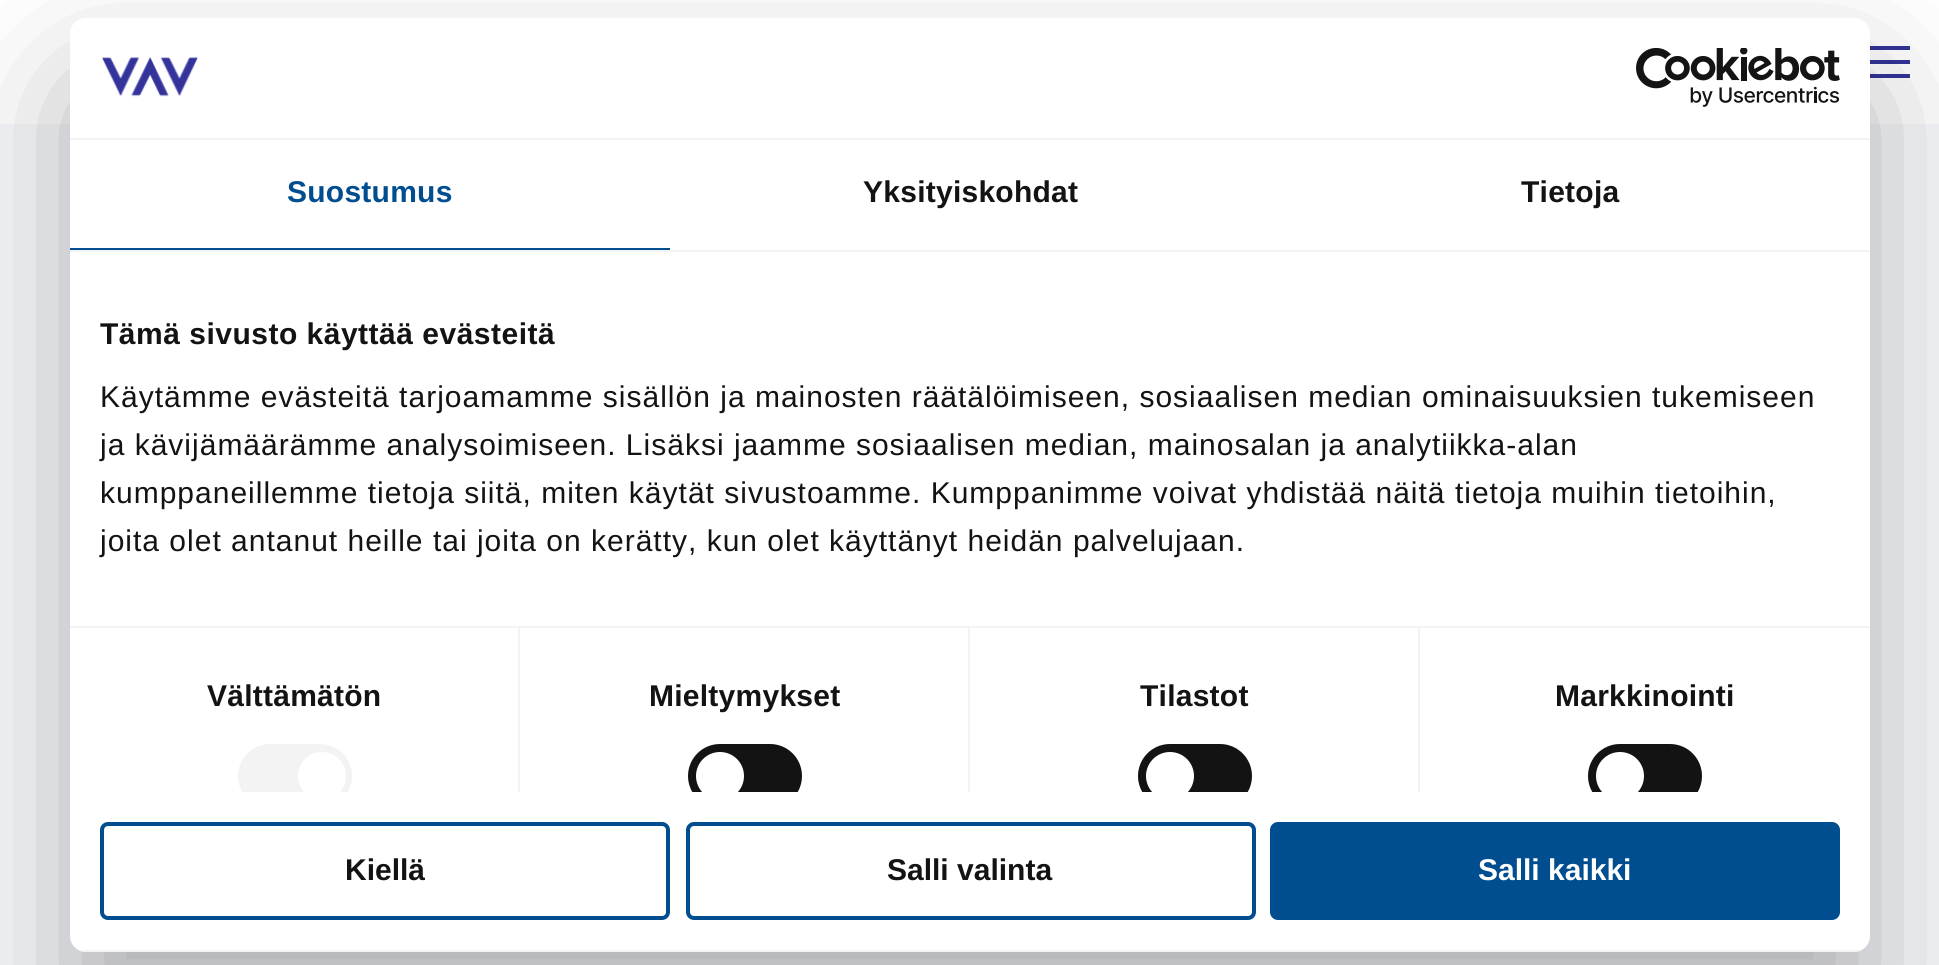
import math
import cairo

surface = cairo.ImageSurface(cairo.FORMAT_RGB24, 1939, 965)
ctx = cairo.Context(surface)
options = cairo.FontOptions()
options.set_hint_metrics(cairo.HINT_METRICS_OFF)
options.set_hint_style(cairo.HINT_STYLE_NONE)
ctx.set_font_options(options)
ctx.set_miter_limit(4)


def spaced_text(x, y, s, letter, word):
    ctx.move_to(x, y)
    for ch in s:
        ctx.show_text(ch)
        ctx.rel_move_to(letter + word * (ch == ' '), 0)


def round_rect(x, y, w, h, r):
    ctx.new_sub_path()
    for i, (u, v) in enumerate([(x + w - r, y + h - r), (x + r, y + h - r), (x + r, y + r), (x + w - r, y + r)]):
        ctx.arc(u, v, r, i * math.pi / 2, (i + 1) * math.pi / 2)
    ctx.close_path()


def shadow(x, y, w, h, r, blur, alpha):
    ctx.push_group_with_content(cairo.CONTENT_ALPHA)
    ctx.set_operator(cairo.OPERATOR_SOURCE)
    for i in range(15, -16, -2):
        e = blur * i / 6
        if min(w, h) + 2 * e > 0:
            ctx.set_source_rgba(0, 0, 0, alpha * math.erfc((i - 1) / 8.5) / 2)
            round_rect(x - e, y - e, w + 2 * e, h + 2 * e, max(0, min(r + e + blur * .6, min(w, h) / 2 + e)))
            ctx.fill()
    ctx.mask(ctx.pop_group())


def picture(path, x, y, w, h):
    ctx.save()
    ctx.set_source_surface(cairo.ImageSurface.create_from_png(path), x, y)
    ctx.rectangle(x, y, w, h)
    ctx.fill()
    ctx.restore()


ctx.set_source_rgb(0.965, 0.969, 0.984)
ctx.paint()
ctx.set_source_rgb(1, 1, 1)
ctx.rectangle(0, 0, 1939, 124)
ctx.fill()
ctx.set_source_rgb(0.2, 0.2, 0.6)
ctx.rectangle(1870, 74, 40, 4)
ctx.fill()
ctx.rectangle(1870, 60, 40, 4)
ctx.fill()
ctx.rectangle(1870, 46, 40, 4)
ctx.fill()
ctx.set_source_rgb(0, 0, 0)
shadow(70, 82, 1800, 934, 16, 68, 0.3)
ctx.set_source_rgb(1, 1, 1)
round_rect(70, 18, 1800, 934, 16)
ctx.fill()
ctx.set_source_rgb(0.953, 0.953, 0.953)
ctx.rectangle(70, 138, 1800, 2)
ctx.fill()
picture("img1.png", 102, 57, 96, 40)
picture("img2.png", 1636, 48, 204, 59)
ctx.rectangle(70, 250, 1800, 2)
ctx.fill()
ctx.set_source_rgb(0, 0.302, 0.561)
ctx.rectangle(70, 248, 600, 2)
ctx.fill()
ctx.select_font_face("Liberation Sans", cairo.FONT_SLANT_NORMAL, cairo.FONT_WEIGHT_BOLD)
ctx.set_font_size(30)
spaced_text(287, 202, "Suostumus", 0.25, 0)
ctx.set_source_rgb(0.078, 0.078, 0.078)
spaced_text(863, 202, "Yksityiskohdat", 0.25, 0)
spaced_text(1521, 202, "Tietoja", 0.25, 0)
ctx.set_source_rgb(0.953, 0.953, 0.953)
ctx.rectangle(70, 626, 1800, 2)
ctx.fill()
ctx.set_source_rgb(0.078, 0.078, 0.078)
spaced_text(100, 344, "Tämä sivusto käyttää evästeitä", 0.5, 0)
ctx.select_font_face("Liberation Sans")
spaced_text(100, 407, "Käytämme evästeitä tarjoamamme sisällön ja mainosten räätälöimiseen, sosiaalisen median ominaisuuksien tukemiseen", 1, 0)
spaced_text(100, 455, "ja kävijämäärämme analysoimiseen. Lisäksi jaamme sosiaalisen median, mainosalan ja analytiikka-alan", 1, 0)
spaced_text(100, 503, "kumppaneillemme tietoja siitä, miten käytät sivustoamme. Kumppanimme voivat yhdistää näitä tietoja muihin tietoihin,", 1, 0)
spaced_text(100, 551, "joita olet antanut heille tai joita on kerätty, kun olet käyttänyt heidän palvelujaan.", 1, 0)
ctx.set_source_rgb(0.953, 0.953, 0.953)
ctx.rectangle(518, 628, 2, 164)
ctx.fill()
ctx.select_font_face("Liberation Sans", cairo.FONT_SLANT_NORMAL, cairo.FONT_WEIGHT_BOLD)
ctx.set_source_rgb(0.078, 0.078, 0.078)
spaced_text(207, 706, "Välttämätön", 0.25, 0)
ctx.save()
ctx.rectangle(70, 252, 1800, 540)
ctx.clip()
ctx.set_source_rgb(0.953, 0.953, 0.953)
round_rect(238, 744, 114, 64, 32)
ctx.fill()
ctx.set_source_rgb(1, 1, 1)
ctx.arc(322, 776, 24, 0, 2 * math.pi)
ctx.fill()
ctx.restore()
ctx.set_source_rgb(0.953, 0.953, 0.953)
ctx.rectangle(968, 628, 2, 164)
ctx.fill()
ctx.set_source_rgb(0.078, 0.078, 0.078)
spaced_text(649, 706, "Mieltymykset", 0.25, 0)
ctx.save()
ctx.rectangle(70, 252, 1800, 540)
ctx.clip()
round_rect(688, 744, 114, 64, 32)
ctx.fill()
ctx.set_source_rgb(1, 1, 1)
ctx.arc(720, 776, 24, 0, 2 * math.pi)
ctx.fill()
ctx.restore()
ctx.set_source_rgb(0.953, 0.953, 0.953)
ctx.rectangle(1418, 628, 2, 164)
ctx.fill()
ctx.set_source_rgb(0.078, 0.078, 0.078)
spaced_text(1140, 706, "Tilastot", 0.25, 0)
ctx.save()
ctx.rectangle(70, 252, 1800, 540)
ctx.clip()
round_rect(1138, 744, 114, 64, 32)
ctx.fill()
ctx.set_source_rgb(1, 1, 1)
ctx.arc(1170, 776, 24, 0, 2 * math.pi)
ctx.fill()
ctx.restore()
spaced_text(1555, 706, "Markkinointi", 0.25, 0)
ctx.save()
ctx.rectangle(70, 252, 1800, 540)
ctx.clip()
round_rect(1588, 744, 114, 64, 32)
ctx.fill()
ctx.set_source_rgb(1, 1, 1)
ctx.arc(1620, 776, 24, 0, 2 * math.pi)
ctx.fill()
ctx.restore()
ctx.save()
round_rect(70, 18, 1800, 934, 16)
ctx.clip()
ctx.set_source_rgb(0.953, 0.953, 0.953)
ctx.rectangle(70, 950, 1800, 2)
ctx.fill()
ctx.restore()
round_rect(102, 824, 566, 94, 6)
ctx.set_source_rgb(0, 0.302, 0.561)
ctx.set_line_width(4)
ctx.stroke()
ctx.set_source_rgb(0.078, 0.078, 0.078)
ctx.move_to(345, 880)
ctx.show_text("Kiellä")
round_rect(688, 824, 566, 94, 6)
ctx.set_source_rgb(0, 0.302, 0.561)
ctx.stroke()
ctx.set_source_rgb(0.078, 0.078, 0.078)
ctx.move_to(887, 880)
ctx.show_text("Salli valinta")
ctx.set_source_rgb(0, 0.302, 0.561)
round_rect(1272, 824, 566, 94, 6)
ctx.fill_preserve()
ctx.stroke()
ctx.set_source_rgb(1, 1, 1)
ctx.move_to(1478, 880)
ctx.show_text("Salli kaikki")
surface.write_to_png("page.png")
